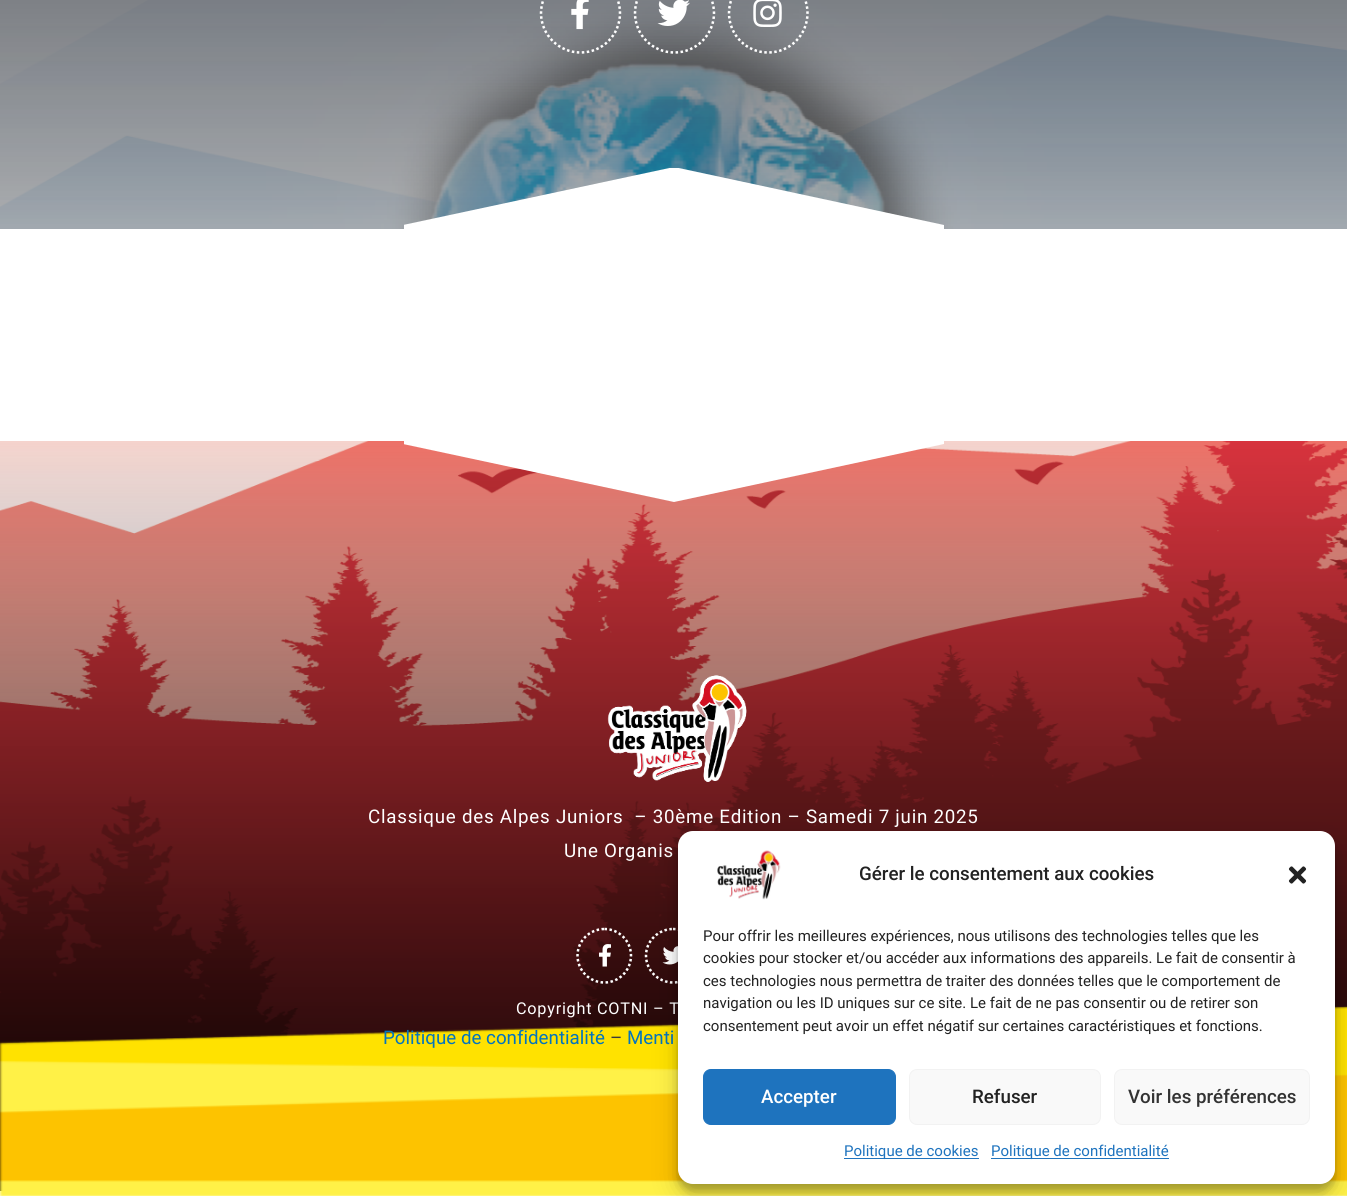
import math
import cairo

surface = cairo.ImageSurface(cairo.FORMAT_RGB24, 1347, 1196)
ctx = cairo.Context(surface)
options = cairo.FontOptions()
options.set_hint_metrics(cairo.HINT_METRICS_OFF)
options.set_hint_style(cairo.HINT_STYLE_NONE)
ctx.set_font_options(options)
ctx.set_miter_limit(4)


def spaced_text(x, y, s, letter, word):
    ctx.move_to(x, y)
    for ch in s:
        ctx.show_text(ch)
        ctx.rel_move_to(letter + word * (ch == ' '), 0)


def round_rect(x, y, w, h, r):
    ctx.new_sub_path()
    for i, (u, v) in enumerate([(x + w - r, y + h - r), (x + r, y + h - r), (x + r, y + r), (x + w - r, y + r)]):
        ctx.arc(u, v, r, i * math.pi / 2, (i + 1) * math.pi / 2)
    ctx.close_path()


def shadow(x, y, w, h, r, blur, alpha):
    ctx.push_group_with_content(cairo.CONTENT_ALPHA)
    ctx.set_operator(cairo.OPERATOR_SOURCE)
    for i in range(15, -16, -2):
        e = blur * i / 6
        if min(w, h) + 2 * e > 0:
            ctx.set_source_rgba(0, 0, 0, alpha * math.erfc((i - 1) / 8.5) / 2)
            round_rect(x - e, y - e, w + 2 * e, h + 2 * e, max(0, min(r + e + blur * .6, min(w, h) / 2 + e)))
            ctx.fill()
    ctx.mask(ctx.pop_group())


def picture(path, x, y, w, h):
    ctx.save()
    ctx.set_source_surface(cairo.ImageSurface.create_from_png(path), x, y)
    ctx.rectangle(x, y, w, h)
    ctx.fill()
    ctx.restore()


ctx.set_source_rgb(1, 1, 1)
ctx.paint()
picture("img1.png", 0, 0, 1347, 229)
gradient = cairo.LinearGradient(674, -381, 674, 229)
gradient.add_color_stop_rgba(0, 0.114, 0.114, 0.137, 0.8)
gradient.add_color_stop_rgba(1, 0, 0, 0, 0.3)
ctx.set_source(gradient)
ctx.rectangle(0, 0, 1347, 229)
ctx.fill()
ctx.new_path()
ctx.move_to(580.5, -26)
ctx.curve_to(602.5, -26, 620, -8.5, 620, 13)
ctx.curve_to(620, 35, 602.5, 52.5, 580.5, 52.5)
ctx.curve_to(559, 52.5, 541, 35, 541, 13)
ctx.curve_to(541, -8.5, 559, -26, 580.5, -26)
ctx.close_path()
ctx.set_source_rgb(1, 1, 1)
ctx.set_line_width(2.5)
ctx.set_dash([2.5, 2.5])
ctx.stroke()
picture("img2.png", 571, 0, 18, 30)
ctx.new_path()
ctx.move_to(674.5, -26)
ctx.curve_to(696, -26, 714, -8.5, 714, 13)
ctx.curve_to(714, 35, 696, 52.5, 674.5, 52.5)
ctx.curve_to(652.5, 52.5, 635, 35, 635, 13)
ctx.curve_to(635, -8.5, 652.5, -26, 674.5, -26)
ctx.close_path()
ctx.stroke()
picture("img3.png", 657, 0, 33, 26)
ctx.new_path()
ctx.move_to(768, -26)
ctx.curve_to(790, -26, 807.5, -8.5, 807.5, 13)
ctx.curve_to(807.5, 35, 790, 52.5, 768, 52.5)
ctx.curve_to(746.5, 52.5, 729, 35, 729, 13)
ctx.curve_to(729, -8.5, 746.5, -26, 768, -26)
ctx.close_path()
ctx.stroke()
picture("img4.png", 753, 0, 29, 27)
ctx.save()
ctx.rectangle(404, 168, 540, 62)
ctx.clip()
ctx.new_path()
ctx.move_to(674, 167)
ctx.line_to(944, 225)
ctx.line_to(944, 229)
ctx.line_to(403, 229)
ctx.line_to(403, 225)
ctx.close_path()
ctx.fill()
ctx.restore()
picture("img5.png", 0, 441, 1347, 750)
ctx.save()
ctx.rectangle(404, 440, 541, 63)
ctx.clip()
ctx.new_path()
ctx.move_to(674, 502)
ctx.line_to(403, 444)
ctx.line_to(403, 440)
ctx.line_to(944, 440)
ctx.line_to(944, 444)
ctx.close_path()
ctx.fill()
ctx.restore()
picture("img6.png", 607, 675, 140, 107)
ctx.select_font_face("Roboto")
ctx.set_font_size(18.75)
spaced_text(368, 823, "Classique des Alpes Juniors  – 30ème Edition – Samedi 7 juin 2025", 0.75, 0)
spaced_text(564, 857, "Une Organis", 0.75, 0)
ctx.new_path()
ctx.move_to(604.5, 929)
ctx.curve_to(619, 929, 631, 941, 631, 955.5)
ctx.curve_to(631, 970.5, 619, 982.5, 604.5, 982.5)
ctx.curve_to(589.5, 982.5, 577.5, 970.5, 577.5, 955.5)
ctx.curve_to(577.5, 941, 589.5, 929, 604.5, 929)
ctx.close_path()
ctx.stroke()
picture("img7.png", 599, 944, 12, 23)
ctx.new_path()
ctx.move_to(673, 929)
ctx.curve_to(688, 929, 700, 941, 700, 955.5)
ctx.curve_to(700, 970.5, 688, 982.5, 673, 982.5)
ctx.curve_to(658.5, 982.5, 646, 970.5, 646, 955.5)
ctx.curve_to(646, 941, 658.5, 929, 673, 929)
ctx.close_path()
ctx.stroke()
picture("img8.png", 662, 946, 16, 19)
ctx.set_font_size(16.25)
spaced_text(516, 1014, "Copyright COTNI – T", 0.75, 0)
picture("img9.png", 0, 1006, 1347, 190)
ctx.set_font_size(18.75)
ctx.set_source_rgb(0.008, 0.455, 0.745)
ctx.move_to(383, 1044)
ctx.show_text("Politique de confidentialité")
ctx.set_source_rgb(0.227, 0.227, 0.227)
ctx.move_to(610, 1044)
ctx.show_text("–")
ctx.set_source_rgb(0.008, 0.455, 0.745)
ctx.move_to(627, 1044)
ctx.show_text("Menti")
ctx.set_source_rgb(0, 0, 0)
shadow(678, 839, 657, 352, 15, 4, 0.23)
shadow(678, 844, 657, 352, 15, 12.5, 0.19)
ctx.set_source_rgb(1, 1, 1)
round_rect(678, 831, 657, 353, 15)
ctx.fill()
picture("img10.png", 717, 850, 64, 50)
ctx.select_font_face("Roboto Medium")
ctx.set_source_rgb(0.133, 0.133, 0.133)
ctx.move_to(859, 880)
ctx.show_text("Gérer le consentement aux cookies")
picture("img11.png", 1288, 866, 19, 18)
ctx.select_font_face("Roboto")
ctx.set_font_size(15)
ctx.move_to(703, 941)
ctx.show_text("Pour offrir les meilleures expériences, nous utilisons des technologies telles que les")
ctx.move_to(703, 963)
ctx.show_text("cookies pour stocker et/ou accéder aux informations des appareils. Le fait de consentir à")
ctx.move_to(703, 986)
ctx.show_text("ces technologies nous permettra de traiter des données telles que le comportement de")
ctx.move_to(703, 1008)
ctx.show_text("navigation ou les ID uniques sur ce site. Le fait de ne pas consentir ou de retirer son")
ctx.move_to(703, 1031)
ctx.show_text("consentement peut avoir un effet négatif sur certaines caractéristiques et fonctions.")
ctx.set_source_rgb(0.118, 0.451, 0.745)
round_rect(703.5, 1069.5, 192, 55, 7.5)
ctx.fill_preserve()
ctx.set_line_width(1)
ctx.set_dash([])
ctx.stroke()
ctx.select_font_face("Roboto Medium")
ctx.set_font_size(18.75)
ctx.set_source_rgb(1, 1, 1)
ctx.move_to(761, 1103)
ctx.show_text("Accepter")
ctx.set_source_rgb(0.976, 0.976, 0.976)
round_rect(909.5, 1069.5, 191, 55, 7.5)
ctx.fill_preserve()
ctx.set_source_rgb(0.949, 0.949, 0.949)
ctx.stroke()
ctx.set_source_rgb(0.133, 0.133, 0.133)
ctx.move_to(972, 1103)
ctx.show_text("Refuser")
ctx.set_source_rgb(0.976, 0.976, 0.976)
round_rect(1114.5, 1069.5, 195, 55, 7.5)
ctx.fill_preserve()
ctx.set_source_rgb(0.949, 0.949, 0.949)
ctx.stroke()
ctx.set_source_rgb(0.2, 0.2, 0.2)
ctx.move_to(1128, 1103)
ctx.show_text("Voir les préférences")
ctx.set_source_rgb(0.118, 0.451, 0.745)
ctx.rectangle(844, 1158, 135, 1)
ctx.fill()
ctx.select_font_face("Roboto")
ctx.set_font_size(15)
ctx.move_to(844, 1156)
ctx.show_text("Politique de cookies")
ctx.rectangle(991, 1158, 178, 1)
ctx.fill()
ctx.move_to(991, 1156)
ctx.show_text("Politique de confidentialité")
surface.write_to_png("page.png")
